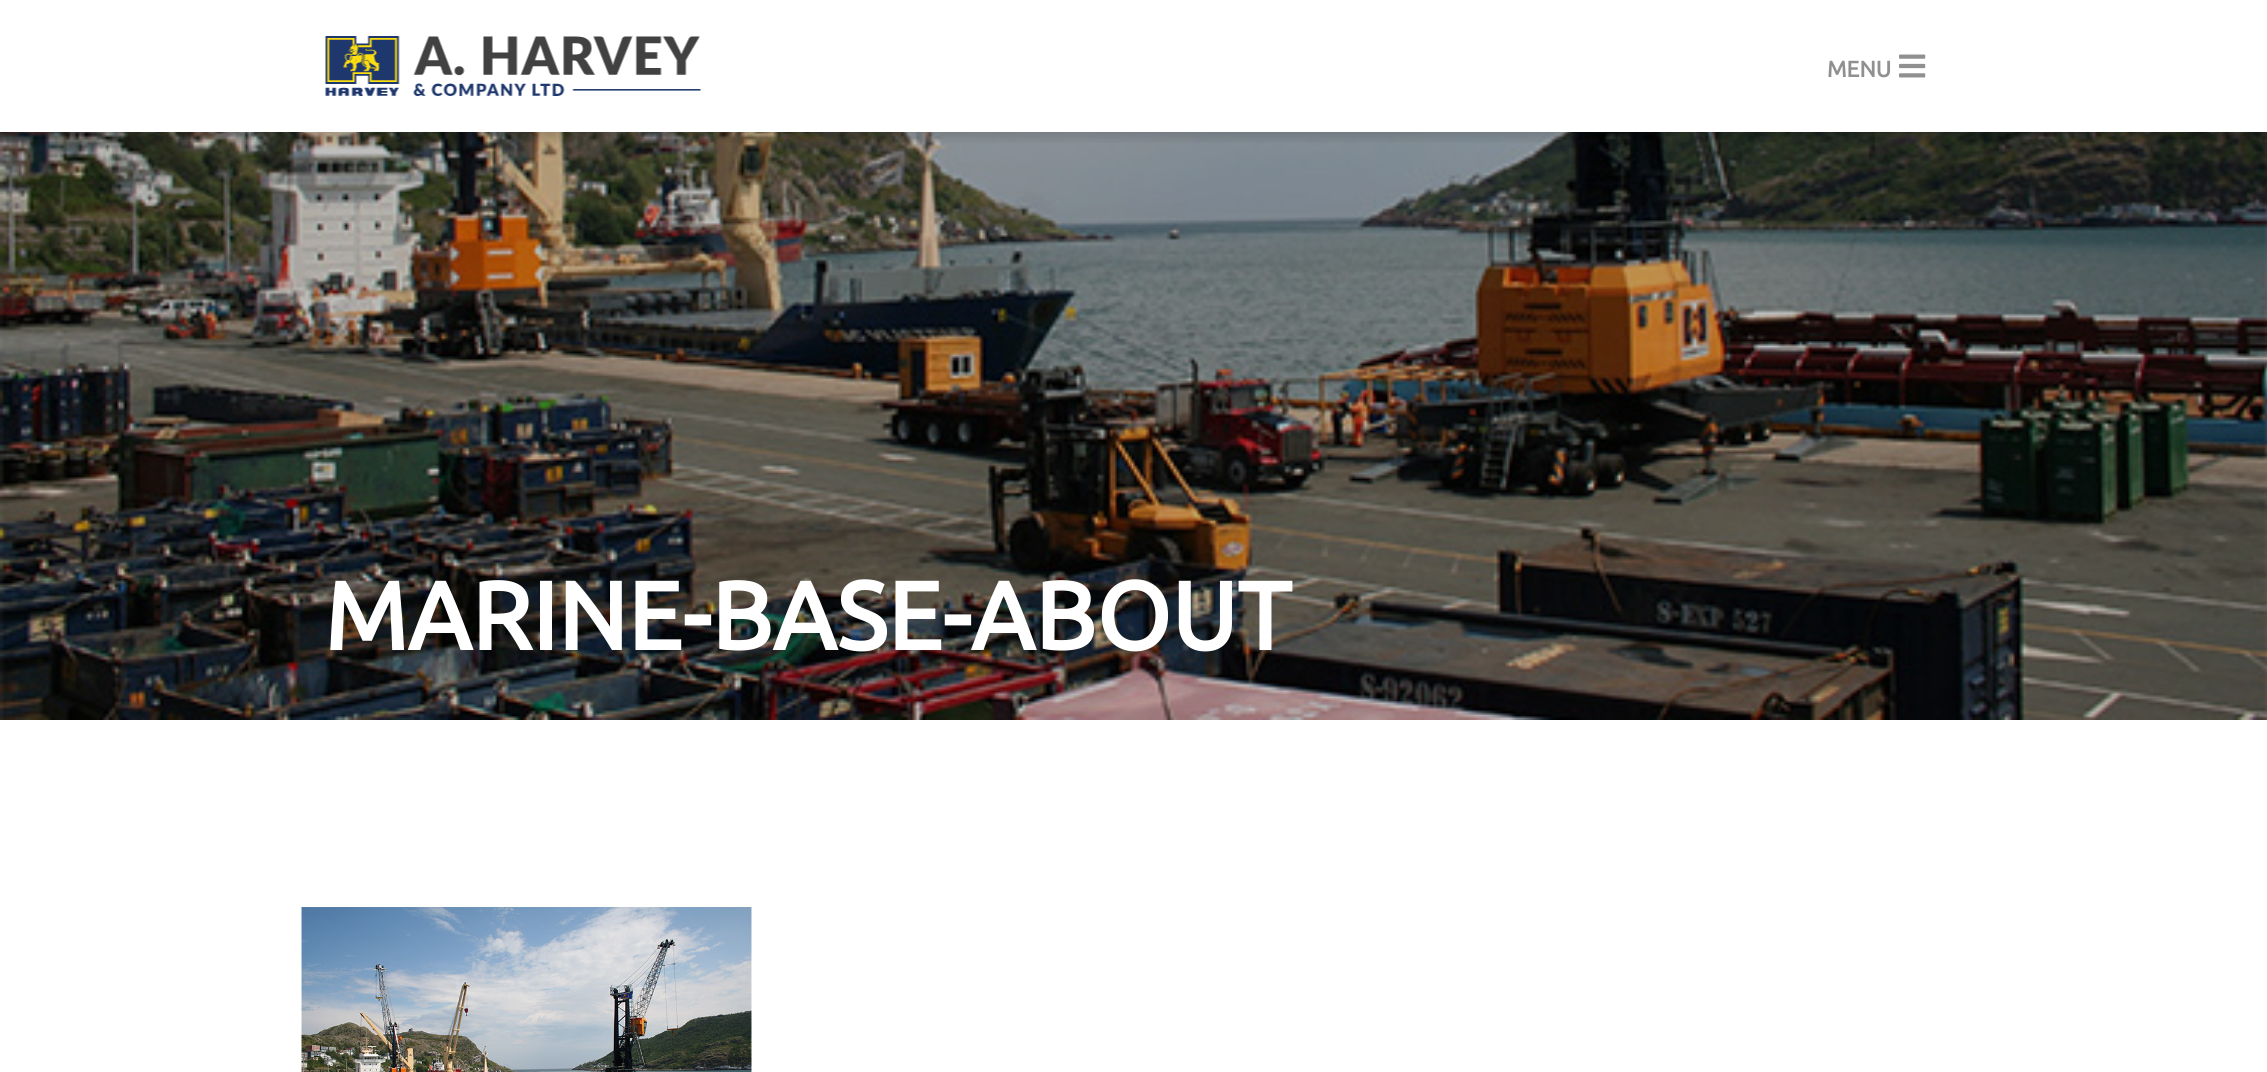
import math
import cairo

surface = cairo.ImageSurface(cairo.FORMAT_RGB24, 2267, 1072)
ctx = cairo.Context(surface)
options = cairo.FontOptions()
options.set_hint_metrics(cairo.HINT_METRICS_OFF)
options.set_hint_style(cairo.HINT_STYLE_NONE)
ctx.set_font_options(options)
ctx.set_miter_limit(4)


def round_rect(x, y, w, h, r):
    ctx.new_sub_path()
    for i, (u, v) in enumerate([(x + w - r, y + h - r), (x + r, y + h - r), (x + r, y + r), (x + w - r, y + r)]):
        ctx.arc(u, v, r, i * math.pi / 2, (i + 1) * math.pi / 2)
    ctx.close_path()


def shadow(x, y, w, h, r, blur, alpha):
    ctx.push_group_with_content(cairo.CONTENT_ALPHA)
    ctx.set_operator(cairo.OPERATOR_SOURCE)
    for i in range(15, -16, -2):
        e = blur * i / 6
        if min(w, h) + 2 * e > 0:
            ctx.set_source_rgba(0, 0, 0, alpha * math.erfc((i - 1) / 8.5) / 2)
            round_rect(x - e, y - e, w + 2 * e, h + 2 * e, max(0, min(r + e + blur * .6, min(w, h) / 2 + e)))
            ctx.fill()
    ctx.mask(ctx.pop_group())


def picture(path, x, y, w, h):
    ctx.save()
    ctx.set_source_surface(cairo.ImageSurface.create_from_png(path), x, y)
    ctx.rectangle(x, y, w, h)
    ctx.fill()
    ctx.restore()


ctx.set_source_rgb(1, 1, 1)
ctx.paint()
picture("img3.png", 0, 132, 2267, 588)
ctx.save()
ctx.rectangle(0, 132, 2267, 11)
ctx.clip()
ctx.set_source_rgb(0, 0, 0)
shadow(-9, -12, 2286, 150, 0, 5, 0.14)
ctx.restore()
picture("img1.png", 325, 36, 376, 60)
ctx.select_font_face("Ubuntu", cairo.FONT_SLANT_NORMAL, cairo.FONT_WEIGHT_BOLD)
ctx.set_font_size(22.5)
ctx.set_source_rgb(0.569, 0.565, 0.569)
ctx.move_to(1827, 77)
ctx.show_text("MENU")
picture("img2.png", 1899, 54, 27, 24)
ctx.set_font_size(96)
ctx.set_source_rgb(1, 1, 1)
ctx.move_to(324, 650)
ctx.show_text("MARINE-BASE-ABOUT")
picture("img4.png", 301, 905, 451, 167)
surface.write_to_png("page.png")
